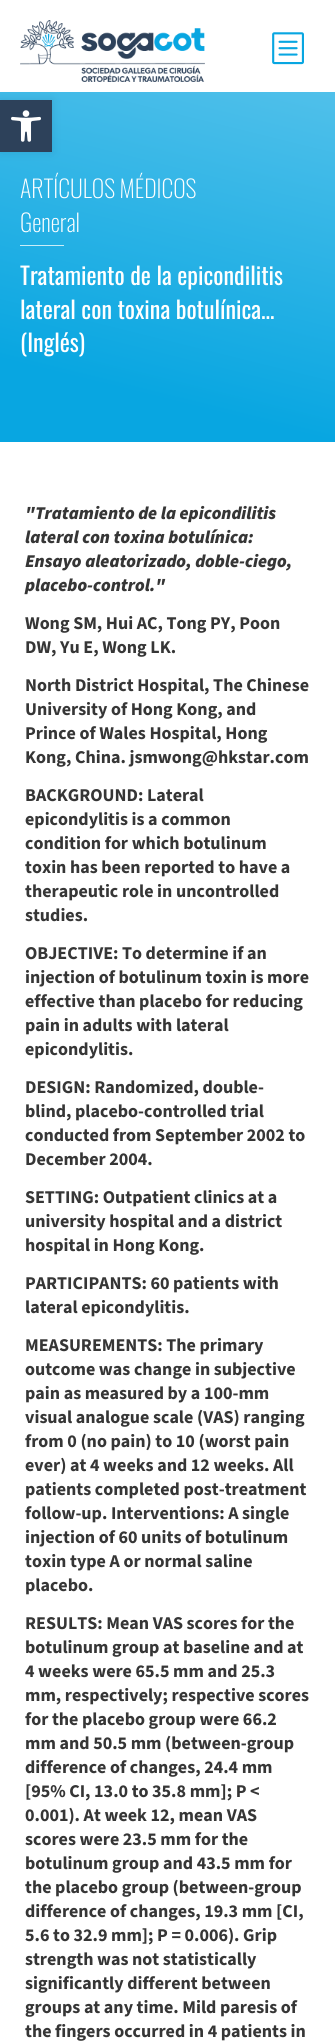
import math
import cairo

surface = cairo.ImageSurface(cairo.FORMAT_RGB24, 335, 2043)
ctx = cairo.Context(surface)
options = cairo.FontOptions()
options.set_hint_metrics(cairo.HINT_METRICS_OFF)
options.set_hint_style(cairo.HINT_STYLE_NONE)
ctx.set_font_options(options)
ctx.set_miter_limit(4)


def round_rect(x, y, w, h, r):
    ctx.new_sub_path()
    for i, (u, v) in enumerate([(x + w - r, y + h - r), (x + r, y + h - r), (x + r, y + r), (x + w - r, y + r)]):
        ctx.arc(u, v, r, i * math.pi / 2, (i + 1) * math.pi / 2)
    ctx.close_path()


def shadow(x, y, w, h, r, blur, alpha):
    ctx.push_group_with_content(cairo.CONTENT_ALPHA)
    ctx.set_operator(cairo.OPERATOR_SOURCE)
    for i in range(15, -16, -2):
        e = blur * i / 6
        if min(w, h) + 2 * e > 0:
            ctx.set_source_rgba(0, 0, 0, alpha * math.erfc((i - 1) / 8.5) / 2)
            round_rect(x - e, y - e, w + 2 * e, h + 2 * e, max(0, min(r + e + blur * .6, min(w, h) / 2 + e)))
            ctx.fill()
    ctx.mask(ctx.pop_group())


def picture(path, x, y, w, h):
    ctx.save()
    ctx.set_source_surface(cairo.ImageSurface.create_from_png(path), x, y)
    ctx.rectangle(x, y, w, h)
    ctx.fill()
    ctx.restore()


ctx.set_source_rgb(1, 1, 1)
ctx.paint()
picture("img1.png", 20, 20, 185, 62)
picture("img2.png", 272, 32, 32, 33)
gradient = cairo.LinearGradient(117, 471, 218, 63)
gradient.add_color_stop_rgba(0.19, 0.031, 0.651, 0.882, 1)
gradient.add_color_stop_rgba(1, 0.314, 0.753, 0.918, 1)
ctx.set_source(gradient)
ctx.rectangle(0, 92, 335, 350)
ctx.fill()
ctx.set_source_rgb(0, 0, 0)
shadow(0, 100, 52, 52, 0, 5, 0.1)
ctx.set_source_rgb(0.176, 0.255, 0.353)
ctx.rectangle(0, 100, 52, 52)
ctx.fill()
picture("img3.png", 11, 110, 30, 32)
ctx.select_font_face("Oswald ExtraLight")
ctx.set_font_size(24)
ctx.set_source_rgb(1, 1, 1)
ctx.move_to(20, 198)
ctx.show_text("ARTÍCULOS MÉDICOS")
ctx.move_to(20, 232)
ctx.show_text("General")
ctx.set_source_rgb(0.788, 0.929, 0.969)
ctx.rectangle(20, 245, 44, 1)
ctx.fill()
ctx.select_font_face("Oswald")
ctx.set_source_rgb(1, 1, 1)
ctx.move_to(20, 285)
ctx.show_text("Tratamiento de la epicondilitis")
ctx.move_to(20, 319)
ctx.show_text("lateral con toxina botulínica…")
ctx.move_to(20, 352)
ctx.show_text("(Inglés)")
ctx.select_font_face("Source Sans 3 Black", cairo.FONT_SLANT_ITALIC)
ctx.set_font_size(18)
ctx.set_source_rgb(0.212, 0.212, 0.212)
ctx.move_to(25, 519)
ctx.show_text("\"Tratamiento de la epicondilitis")
ctx.move_to(25, 543)
ctx.show_text("lateral con toxina botulínica:")
ctx.move_to(25, 567)
ctx.show_text("Ensayo aleatorizado, doble-ciego,")
ctx.move_to(25, 591)
ctx.show_text("placebo-control.\"")
ctx.select_font_face("Source Sans 3", cairo.FONT_SLANT_NORMAL, cairo.FONT_WEIGHT_BOLD)
ctx.move_to(25, 629)
ctx.show_text("Wong SM, Hui AC, Tong PY, Poon")
ctx.move_to(25, 653)
ctx.show_text("DW, Yu E, Wong LK.")
ctx.move_to(25, 691)
ctx.show_text("North District Hospital, The Chinese")
ctx.move_to(25, 715)
ctx.show_text("University of Hong Kong, and")
ctx.move_to(25, 739)
ctx.show_text("Prince of Wales Hospital, Hong")
ctx.move_to(25, 763)
ctx.show_text("Kong, China. jsmwong@hkstar.com")
ctx.move_to(25, 801)
ctx.show_text("BACKGROUND: Lateral")
ctx.move_to(25, 825)
ctx.show_text("epicondylitis is a common")
ctx.move_to(25, 849)
ctx.show_text("condition for which botulinum")
ctx.move_to(25, 873)
ctx.show_text("toxin has been reported to have a")
ctx.move_to(25, 897)
ctx.show_text("therapeutic role in uncontrolled")
ctx.move_to(25, 921)
ctx.show_text("studies.")
ctx.move_to(25, 959)
ctx.show_text("OBJECTIVE: To determine if an")
ctx.move_to(25, 983)
ctx.show_text("injection of botulinum toxin is more")
ctx.move_to(25, 1007)
ctx.show_text("effective than placebo for reducing")
ctx.move_to(25, 1031)
ctx.show_text("pain in adults with lateral")
ctx.move_to(25, 1055)
ctx.show_text("epicondylitis.")
ctx.move_to(25, 1093)
ctx.show_text("DESIGN: Randomized, double-")
ctx.move_to(25, 1117)
ctx.show_text("blind, placebo-controlled trial")
ctx.move_to(25, 1141)
ctx.show_text("conducted from September 2002 to")
ctx.move_to(25, 1165)
ctx.show_text("December 2004.")
ctx.move_to(25, 1203)
ctx.show_text("SETTING: Outpatient clinics at a")
ctx.move_to(25, 1227)
ctx.show_text("university hospital and a district")
ctx.move_to(25, 1251)
ctx.show_text("hospital in Hong Kong.")
ctx.move_to(25, 1289)
ctx.show_text("PARTICIPANTS: 60 patients with")
ctx.move_to(25, 1313)
ctx.show_text("lateral epicondylitis.")
ctx.move_to(25, 1351)
ctx.show_text("MEASUREMENTS: The primary")
ctx.move_to(25, 1375)
ctx.show_text("outcome was change in subjective")
ctx.move_to(25, 1399)
ctx.show_text("pain as measured by a 100-mm")
ctx.move_to(25, 1423)
ctx.show_text("visual analogue scale (VAS) ranging")
ctx.move_to(25, 1447)
ctx.show_text("from 0 (no pain) to 10 (worst pain")
ctx.move_to(25, 1471)
ctx.show_text("ever) at 4 weeks and 12 weeks. All")
ctx.move_to(25, 1495)
ctx.show_text("patients completed post-treatment")
ctx.move_to(25, 1519)
ctx.show_text("follow-up. Interventions: A single")
ctx.move_to(25, 1543)
ctx.show_text("injection of 60 units of botulinum")
ctx.move_to(25, 1567)
ctx.show_text("toxin type A or normal saline")
ctx.move_to(25, 1591)
ctx.show_text("placebo.")
ctx.move_to(25, 1629)
ctx.show_text("RESULTS: Mean VAS scores for the")
ctx.move_to(25, 1653)
ctx.show_text("botulinum group at baseline and at")
ctx.move_to(25, 1677)
ctx.show_text("4 weeks were 65.5 mm and 25.3")
ctx.move_to(25, 1701)
ctx.show_text("mm, respectively; respective scores")
ctx.move_to(25, 1725)
ctx.show_text("for the placebo group were 66.2")
ctx.move_to(25, 1749)
ctx.show_text("mm and 50.5 mm (between-group")
ctx.move_to(25, 1773)
ctx.show_text("difference of changes, 24.4 mm")
ctx.move_to(25, 1797)
ctx.show_text("[95% CI, 13.0 to 35.8 mm]; P <")
ctx.move_to(25, 1821)
ctx.show_text("0.001). At week 12, mean VAS")
ctx.move_to(25, 1845)
ctx.show_text("scores were 23.5 mm for the")
ctx.move_to(25, 1869)
ctx.show_text("botulinum group and 43.5 mm for")
ctx.move_to(25, 1893)
ctx.show_text("the placebo group (between-group")
ctx.move_to(25, 1917)
ctx.show_text("difference of changes, 19.3 mm [CI,")
ctx.move_to(25, 1941)
ctx.show_text("5.6 to 32.9 mm]; P = 0.006). Grip")
ctx.move_to(25, 1965)
ctx.show_text("strength was not statistically")
ctx.move_to(25, 1989)
ctx.show_text("significantly different between")
ctx.move_to(25, 2013)
ctx.show_text("groups at any time. Mild paresis of")
ctx.move_to(25, 2037)
ctx.show_text("the fingers occurred in 4 patients in")
surface.write_to_png("page.png")
